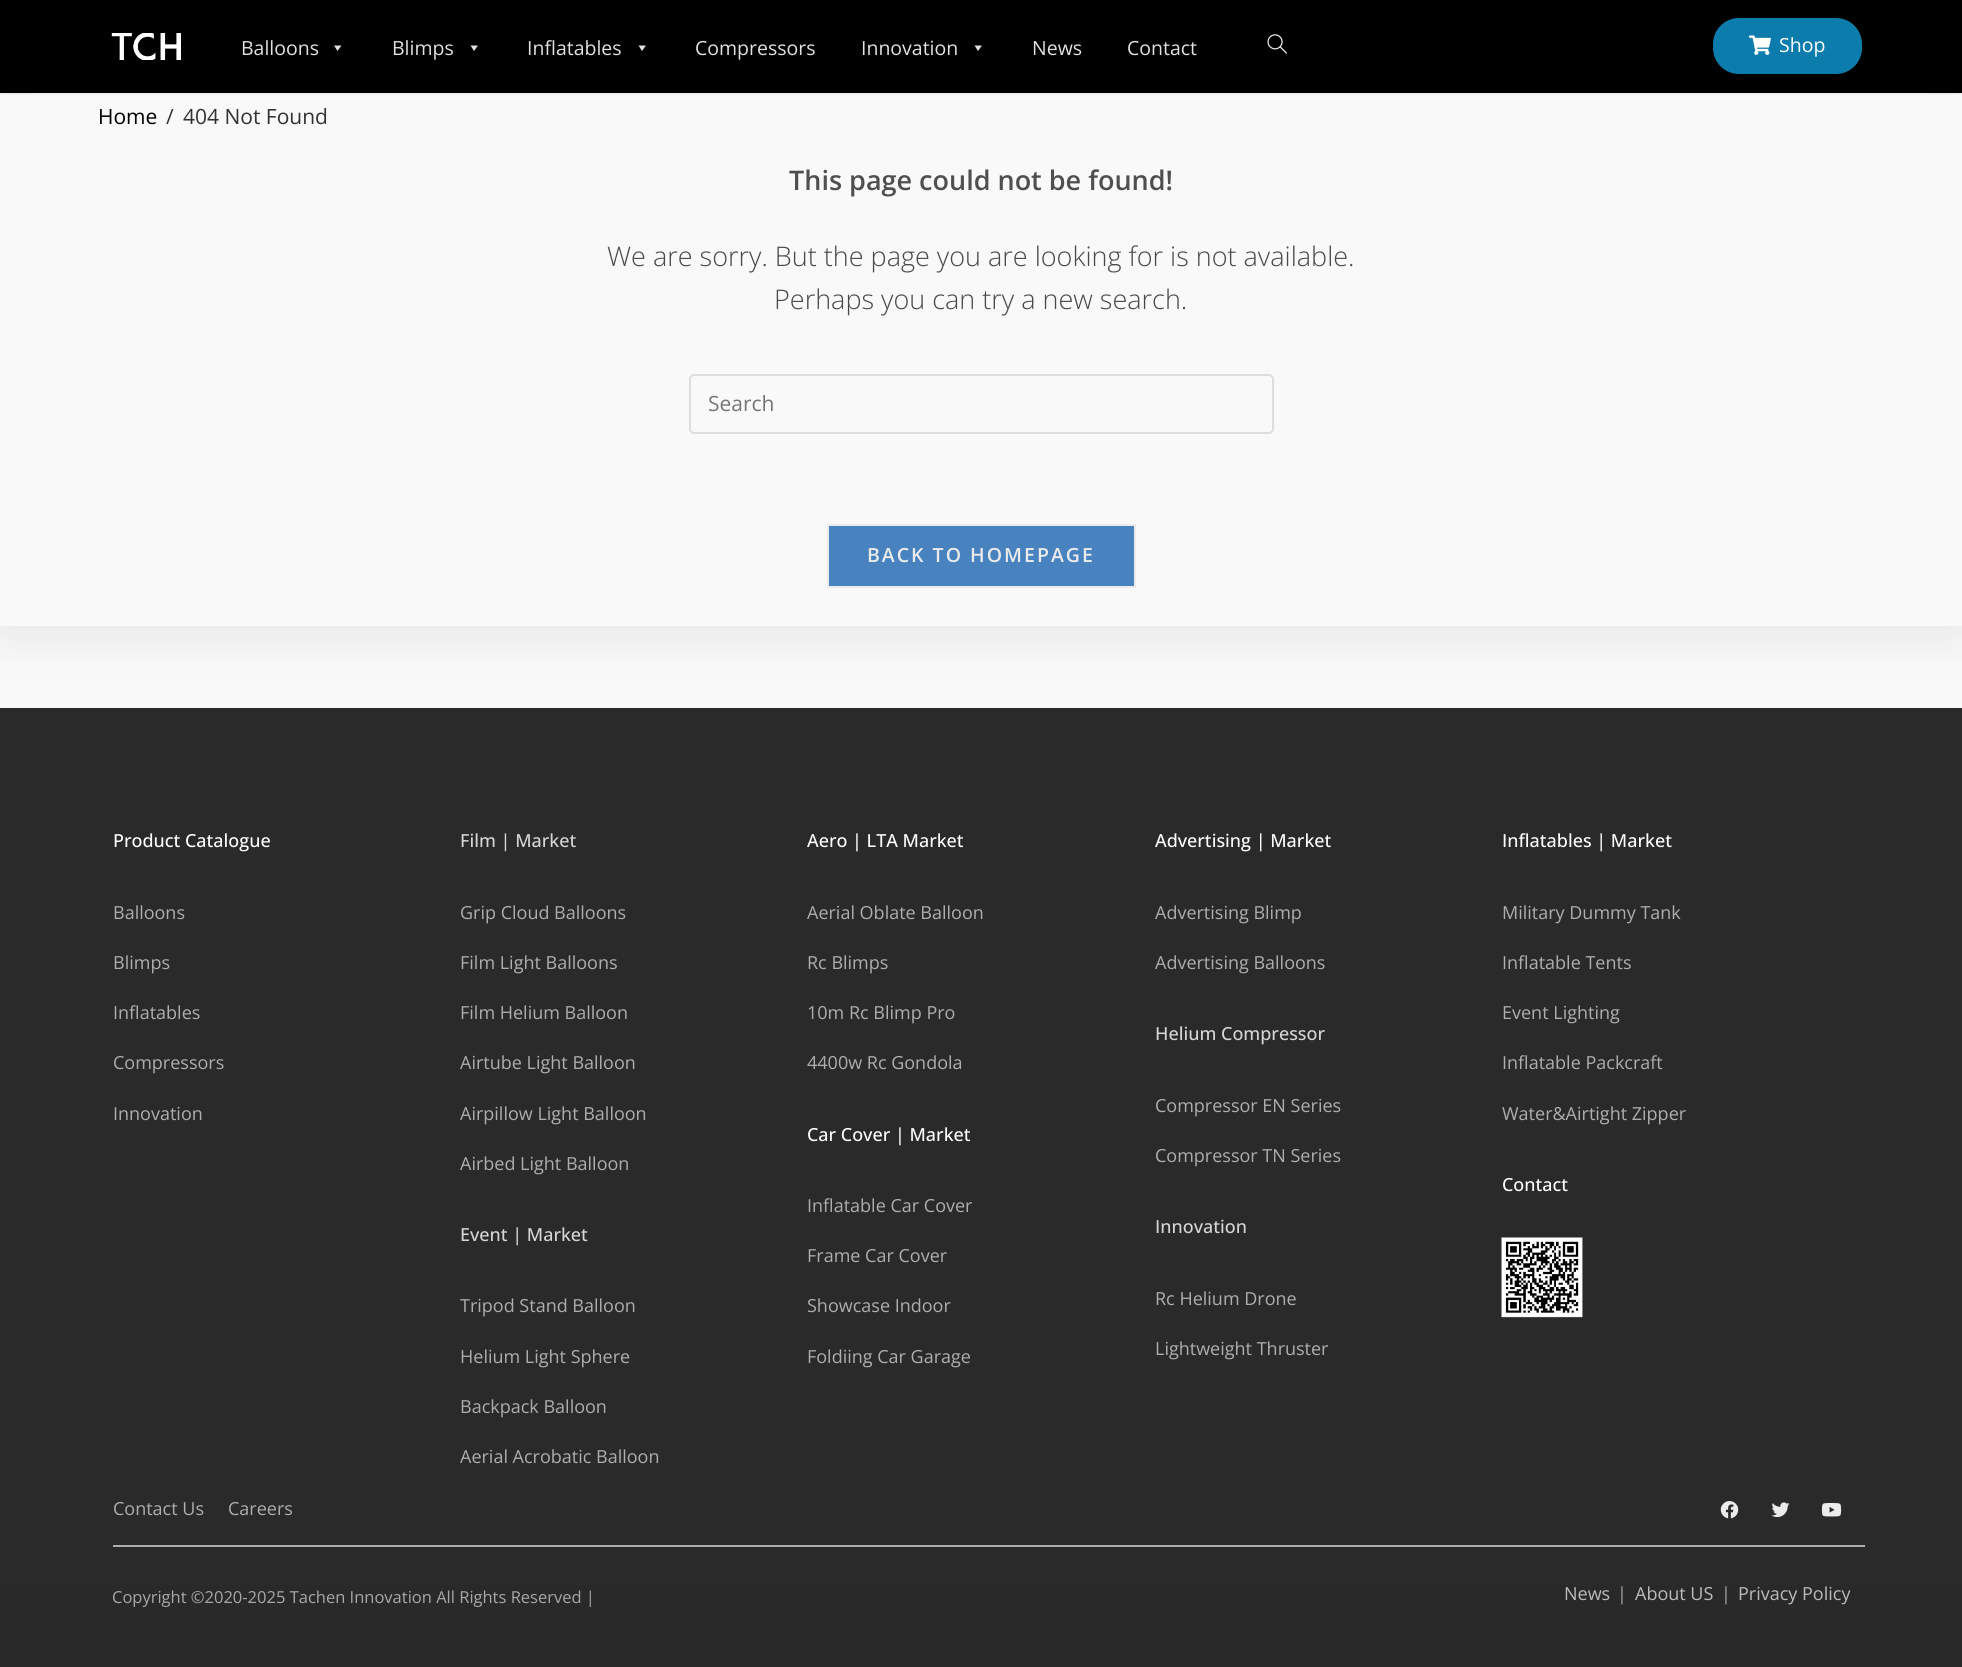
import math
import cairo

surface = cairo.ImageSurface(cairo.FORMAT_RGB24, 1962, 1667)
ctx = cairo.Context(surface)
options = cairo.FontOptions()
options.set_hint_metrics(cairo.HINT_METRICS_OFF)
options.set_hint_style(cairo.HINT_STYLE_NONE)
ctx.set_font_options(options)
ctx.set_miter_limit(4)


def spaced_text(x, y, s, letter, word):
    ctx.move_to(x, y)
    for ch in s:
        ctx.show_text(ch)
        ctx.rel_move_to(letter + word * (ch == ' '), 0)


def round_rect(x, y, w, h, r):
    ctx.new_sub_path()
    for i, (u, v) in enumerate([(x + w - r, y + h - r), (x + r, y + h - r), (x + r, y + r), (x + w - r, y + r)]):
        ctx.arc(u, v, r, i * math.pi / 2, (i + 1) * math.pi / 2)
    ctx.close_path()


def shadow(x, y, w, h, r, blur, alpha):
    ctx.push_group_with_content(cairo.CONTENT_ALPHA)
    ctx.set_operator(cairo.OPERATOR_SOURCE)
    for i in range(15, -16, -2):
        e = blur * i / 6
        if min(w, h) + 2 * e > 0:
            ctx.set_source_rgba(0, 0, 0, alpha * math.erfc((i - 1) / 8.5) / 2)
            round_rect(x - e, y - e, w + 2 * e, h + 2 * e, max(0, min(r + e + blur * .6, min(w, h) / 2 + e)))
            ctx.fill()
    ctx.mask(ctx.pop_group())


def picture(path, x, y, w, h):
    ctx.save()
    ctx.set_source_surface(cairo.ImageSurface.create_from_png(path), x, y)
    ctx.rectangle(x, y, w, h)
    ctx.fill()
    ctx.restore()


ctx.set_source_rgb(0.976, 0.976, 0.976)
ctx.paint()
ctx.set_source_rgb(0.165, 0.165, 0.165)
ctx.rectangle(0, 708, 1962, 878)
ctx.fill()
ctx.set_source_rgb(0, 0, 0)
shadow(0, 95, 1962, 531, 0, 30, 0.1)
ctx.set_source_rgb(0, 0, 0)
ctx.rectangle(0, 0, 1962, 93)
ctx.fill()
ctx.set_source_rgb(0.945, 0.945, 0.945)
ctx.rectangle(33, 93, 1896, 2)
ctx.fill()
picture("img1.png", 111, 33, 70, 27)
ctx.select_font_face("Open Sans")
ctx.set_font_size(19.5)
ctx.set_source_rgb(0.882, 0.882, 0.882)
ctx.move_to(241, 55)
ctx.show_text("Balloons")
ctx.new_path()
ctx.move_to(341.5, 45.5)
ctx.line_to(337.5, 51)
ctx.line_to(334, 45.5)
ctx.close_path()
ctx.fill()
ctx.move_to(392, 55)
ctx.show_text("Blimps")
ctx.new_path()
ctx.move_to(478, 45.5)
ctx.line_to(474, 51)
ctx.line_to(470.5, 45.5)
ctx.close_path()
ctx.fill()
ctx.move_to(527, 55)
ctx.show_text("Inflatables")
ctx.new_path()
ctx.move_to(646, 45.5)
ctx.line_to(642, 51)
ctx.line_to(638.5, 45.5)
ctx.close_path()
ctx.fill()
ctx.move_to(695, 55)
ctx.show_text("Compressors")
ctx.move_to(861, 55)
ctx.show_text("Innovation")
ctx.new_path()
ctx.move_to(982, 45.5)
ctx.line_to(978, 51)
ctx.line_to(974.5, 45.5)
ctx.close_path()
ctx.fill()
ctx.move_to(1032, 55)
ctx.show_text("News")
ctx.move_to(1127, 55)
ctx.show_text("Contact")
picture("img2.png", 1267, 34, 20, 20)
ctx.set_source_rgb(0.043, 0.486, 0.675)
round_rect(1713, 18, 149, 56, 26)
ctx.fill()
picture("img3.png", 1749, 35, 22, 20)
ctx.set_source_rgb(1, 1, 1)
ctx.move_to(1779, 52)
ctx.show_text("Shop")
ctx.set_source_rgb(0.976, 0.976, 0.976)
ctx.rectangle(0, 95, 1962, 531)
ctx.fill()
ctx.set_font_size(21)
ctx.set_source_rgb(0, 0, 0)
ctx.move_to(98, 124)
ctx.show_text("Home")
ctx.set_source_rgb(0.196, 0.196, 0.196)
ctx.move_to(166, 124)
ctx.show_text("/")
ctx.move_to(183, 124)
ctx.show_text("404 Not Found")
ctx.select_font_face("Open Sans SemiBold")
ctx.set_font_size(27)
ctx.set_source_rgb(0.31, 0.31, 0.31)
ctx.move_to(789, 190)
ctx.show_text("This page could not be found!")
ctx.select_font_face("Open Sans Light")
ctx.set_source_rgb(0.286, 0.286, 0.286)
ctx.move_to(607, 266)
ctx.show_text("We are sorry. But the page you are looking for is not available.")
ctx.move_to(774, 309)
ctx.show_text("Perhaps you can try a new search.")
round_rect(690, 375, 583, 58, 4)
ctx.set_source_rgb(0.867, 0.867, 0.867)
ctx.stroke()
ctx.select_font_face("Open Sans")
ctx.set_font_size(21)
ctx.set_source_rgb(0.459, 0.459, 0.459)
ctx.move_to(708, 411)
ctx.show_text("Search")
ctx.set_source_rgb(0.282, 0.514, 0.749)
ctx.rectangle(828, 525, 307, 62)
ctx.fill_preserve()
ctx.set_source_rgb(0.918, 0.918, 0.918)
ctx.stroke()
ctx.select_font_face("Open Sans SemiBold")
ctx.set_font_size(19.5)
spaced_text(867, 562, "BACK TO HOMEPAGE", 2, 0)
ctx.select_font_face("Open Sans Medium")
ctx.set_font_size(18)
ctx.set_source_rgb(1, 1, 1)
ctx.move_to(113, 847)
ctx.show_text("Product Catalogue")
ctx.select_font_face("Open Sans")
ctx.set_source_rgb(0.682, 0.682, 0.682)
ctx.move_to(113, 919)
ctx.show_text("Balloons")
ctx.move_to(113, 969)
ctx.show_text("Blimps")
ctx.move_to(113, 1019)
ctx.show_text("Inflatables")
ctx.move_to(113, 1069)
ctx.show_text("Compressors")
ctx.move_to(113, 1120)
ctx.show_text("Innovation")
ctx.select_font_face("Open Sans Medium")
ctx.set_source_rgb(0.839, 0.839, 0.839)
ctx.move_to(460, 847)
ctx.show_text("Film | Market")
ctx.select_font_face("Open Sans")
ctx.set_source_rgb(0.682, 0.682, 0.682)
ctx.move_to(460, 919)
ctx.show_text("Grip Cloud Balloons")
ctx.move_to(460, 969)
ctx.show_text("Film Light Balloons")
ctx.move_to(460, 1019)
ctx.show_text("Film Helium Balloon")
ctx.move_to(460, 1069)
ctx.show_text("Airtube Light Balloon")
ctx.move_to(460, 1120)
ctx.show_text("Airpillow Light Balloon")
ctx.move_to(460, 1170)
ctx.show_text("Airbed Light Balloon")
ctx.select_font_face("Open Sans Medium")
ctx.set_source_rgb(0.839, 0.839, 0.839)
ctx.move_to(460, 1241)
ctx.show_text("Event | Market")
ctx.select_font_face("Open Sans")
ctx.set_source_rgb(0.682, 0.682, 0.682)
ctx.move_to(460, 1312)
ctx.show_text("Tripod Stand Balloon")
ctx.move_to(460, 1363)
ctx.show_text("Helium Light Sphere")
ctx.move_to(460, 1413)
ctx.show_text("Backpack Balloon")
ctx.move_to(460, 1463)
ctx.show_text("Aerial Acrobatic Balloon")
ctx.select_font_face("Open Sans Medium")
ctx.set_source_rgb(1, 1, 1)
ctx.move_to(807, 847)
ctx.show_text("Aero | LTA Market")
ctx.select_font_face("Open Sans")
ctx.set_source_rgb(0.682, 0.682, 0.682)
ctx.move_to(807, 919)
ctx.show_text("Aerial Oblate Balloon")
ctx.move_to(807, 969)
ctx.show_text("Rc Blimps")
ctx.move_to(807, 1019)
ctx.show_text("10m Rc Blimp Pro")
ctx.move_to(807, 1069)
ctx.show_text("4400w Rc Gondola")
ctx.select_font_face("Open Sans Medium")
ctx.set_source_rgb(1, 1, 1)
ctx.move_to(807, 1141)
ctx.show_text("Car Cover | Market")
ctx.select_font_face("Open Sans")
ctx.set_source_rgb(0.682, 0.682, 0.682)
ctx.move_to(807, 1212)
ctx.show_text("Inflatable Car Cover")
ctx.move_to(807, 1262)
ctx.show_text("Frame Car Cover")
ctx.move_to(807, 1312)
ctx.show_text("Showcase Indoor")
ctx.move_to(807, 1363)
ctx.show_text("Foldiing Car Garage")
ctx.select_font_face("Open Sans Medium")
ctx.set_source_rgb(1, 1, 1)
ctx.move_to(1155, 847)
ctx.show_text("Advertising | Market")
ctx.select_font_face("Open Sans")
ctx.set_source_rgb(0.682, 0.682, 0.682)
ctx.move_to(1155, 919)
ctx.show_text("Advertising Blimp")
ctx.move_to(1155, 969)
ctx.show_text("Advertising Balloons")
ctx.select_font_face("Open Sans Medium")
ctx.set_source_rgb(0.839, 0.839, 0.839)
ctx.move_to(1155, 1040)
ctx.show_text("Helium Compressor")
ctx.select_font_face("Open Sans")
ctx.set_source_rgb(0.682, 0.682, 0.682)
ctx.move_to(1155, 1112)
ctx.show_text("Compressor EN Series")
ctx.move_to(1155, 1162)
ctx.show_text("Compressor TN Series")
ctx.select_font_face("Open Sans Medium")
ctx.set_source_rgb(0.839, 0.839, 0.839)
ctx.move_to(1155, 1233)
ctx.show_text("Innovation")
ctx.select_font_face("Open Sans")
ctx.set_source_rgb(0.682, 0.682, 0.682)
ctx.move_to(1155, 1305)
ctx.show_text("Rc Helium Drone")
ctx.move_to(1155, 1355)
ctx.show_text("Lightweight Thruster")
ctx.select_font_face("Open Sans Medium")
ctx.set_source_rgb(1, 1, 1)
ctx.move_to(1502, 847)
ctx.show_text("Inflatables | Market")
ctx.select_font_face("Open Sans")
ctx.set_source_rgb(0.682, 0.682, 0.682)
ctx.move_to(1502, 919)
ctx.show_text("Military Dummy Tank")
ctx.move_to(1502, 969)
ctx.show_text("Inflatable Tents")
ctx.move_to(1502, 1019)
ctx.show_text("Event Lighting")
ctx.move_to(1502, 1069)
ctx.show_text("Inflatable Packcraft")
ctx.move_to(1502, 1120)
ctx.show_text("Water&Airtight Zipper")
ctx.select_font_face("Open Sans Medium")
ctx.set_source_rgb(1, 1, 1)
ctx.move_to(1502, 1191)
ctx.show_text("Contact")
picture("img4.png", 1501, 1237, 82, 81)
ctx.select_font_face("Open Sans")
ctx.set_source_rgb(0.682, 0.682, 0.682)
ctx.move_to(113, 1515)
ctx.show_text("Contact Us")
ctx.move_to(228, 1515)
ctx.show_text("Careers")
picture("img5.png", 1720, 1501, 19, 18)
picture("img6.png", 1771, 1502, 19, 16)
picture("img7.png", 1821, 1503, 21, 14)
ctx.rectangle(113, 1545, 1752, 2)
ctx.fill()
ctx.set_source_rgb(0.161, 0.161, 0.161)
ctx.rectangle(0, 1586, 1962, 81)
ctx.fill()
ctx.set_font_size(16.5)
ctx.set_source_rgb(0.659, 0.659, 0.659)
ctx.move_to(112, 1603)
ctx.show_text("Copyright ©2020-2025 Tachen Innovation All Rights Reserved |")
ctx.set_font_size(18)
ctx.set_source_rgb(0.737, 0.737, 0.737)
ctx.move_to(1564, 1600)
ctx.show_text("News")
ctx.set_source_rgb(0.659, 0.659, 0.659)
ctx.move_to(1617, 1600)
ctx.show_text("|")
ctx.set_source_rgb(0.737, 0.737, 0.737)
ctx.move_to(1635, 1600)
ctx.show_text("About US")
ctx.set_source_rgb(0.659, 0.659, 0.659)
ctx.move_to(1721, 1600)
ctx.show_text("|")
ctx.set_source_rgb(0.737, 0.737, 0.737)
ctx.move_to(1738, 1600)
ctx.show_text("Privacy Policy")
surface.write_to_png("page.png")
